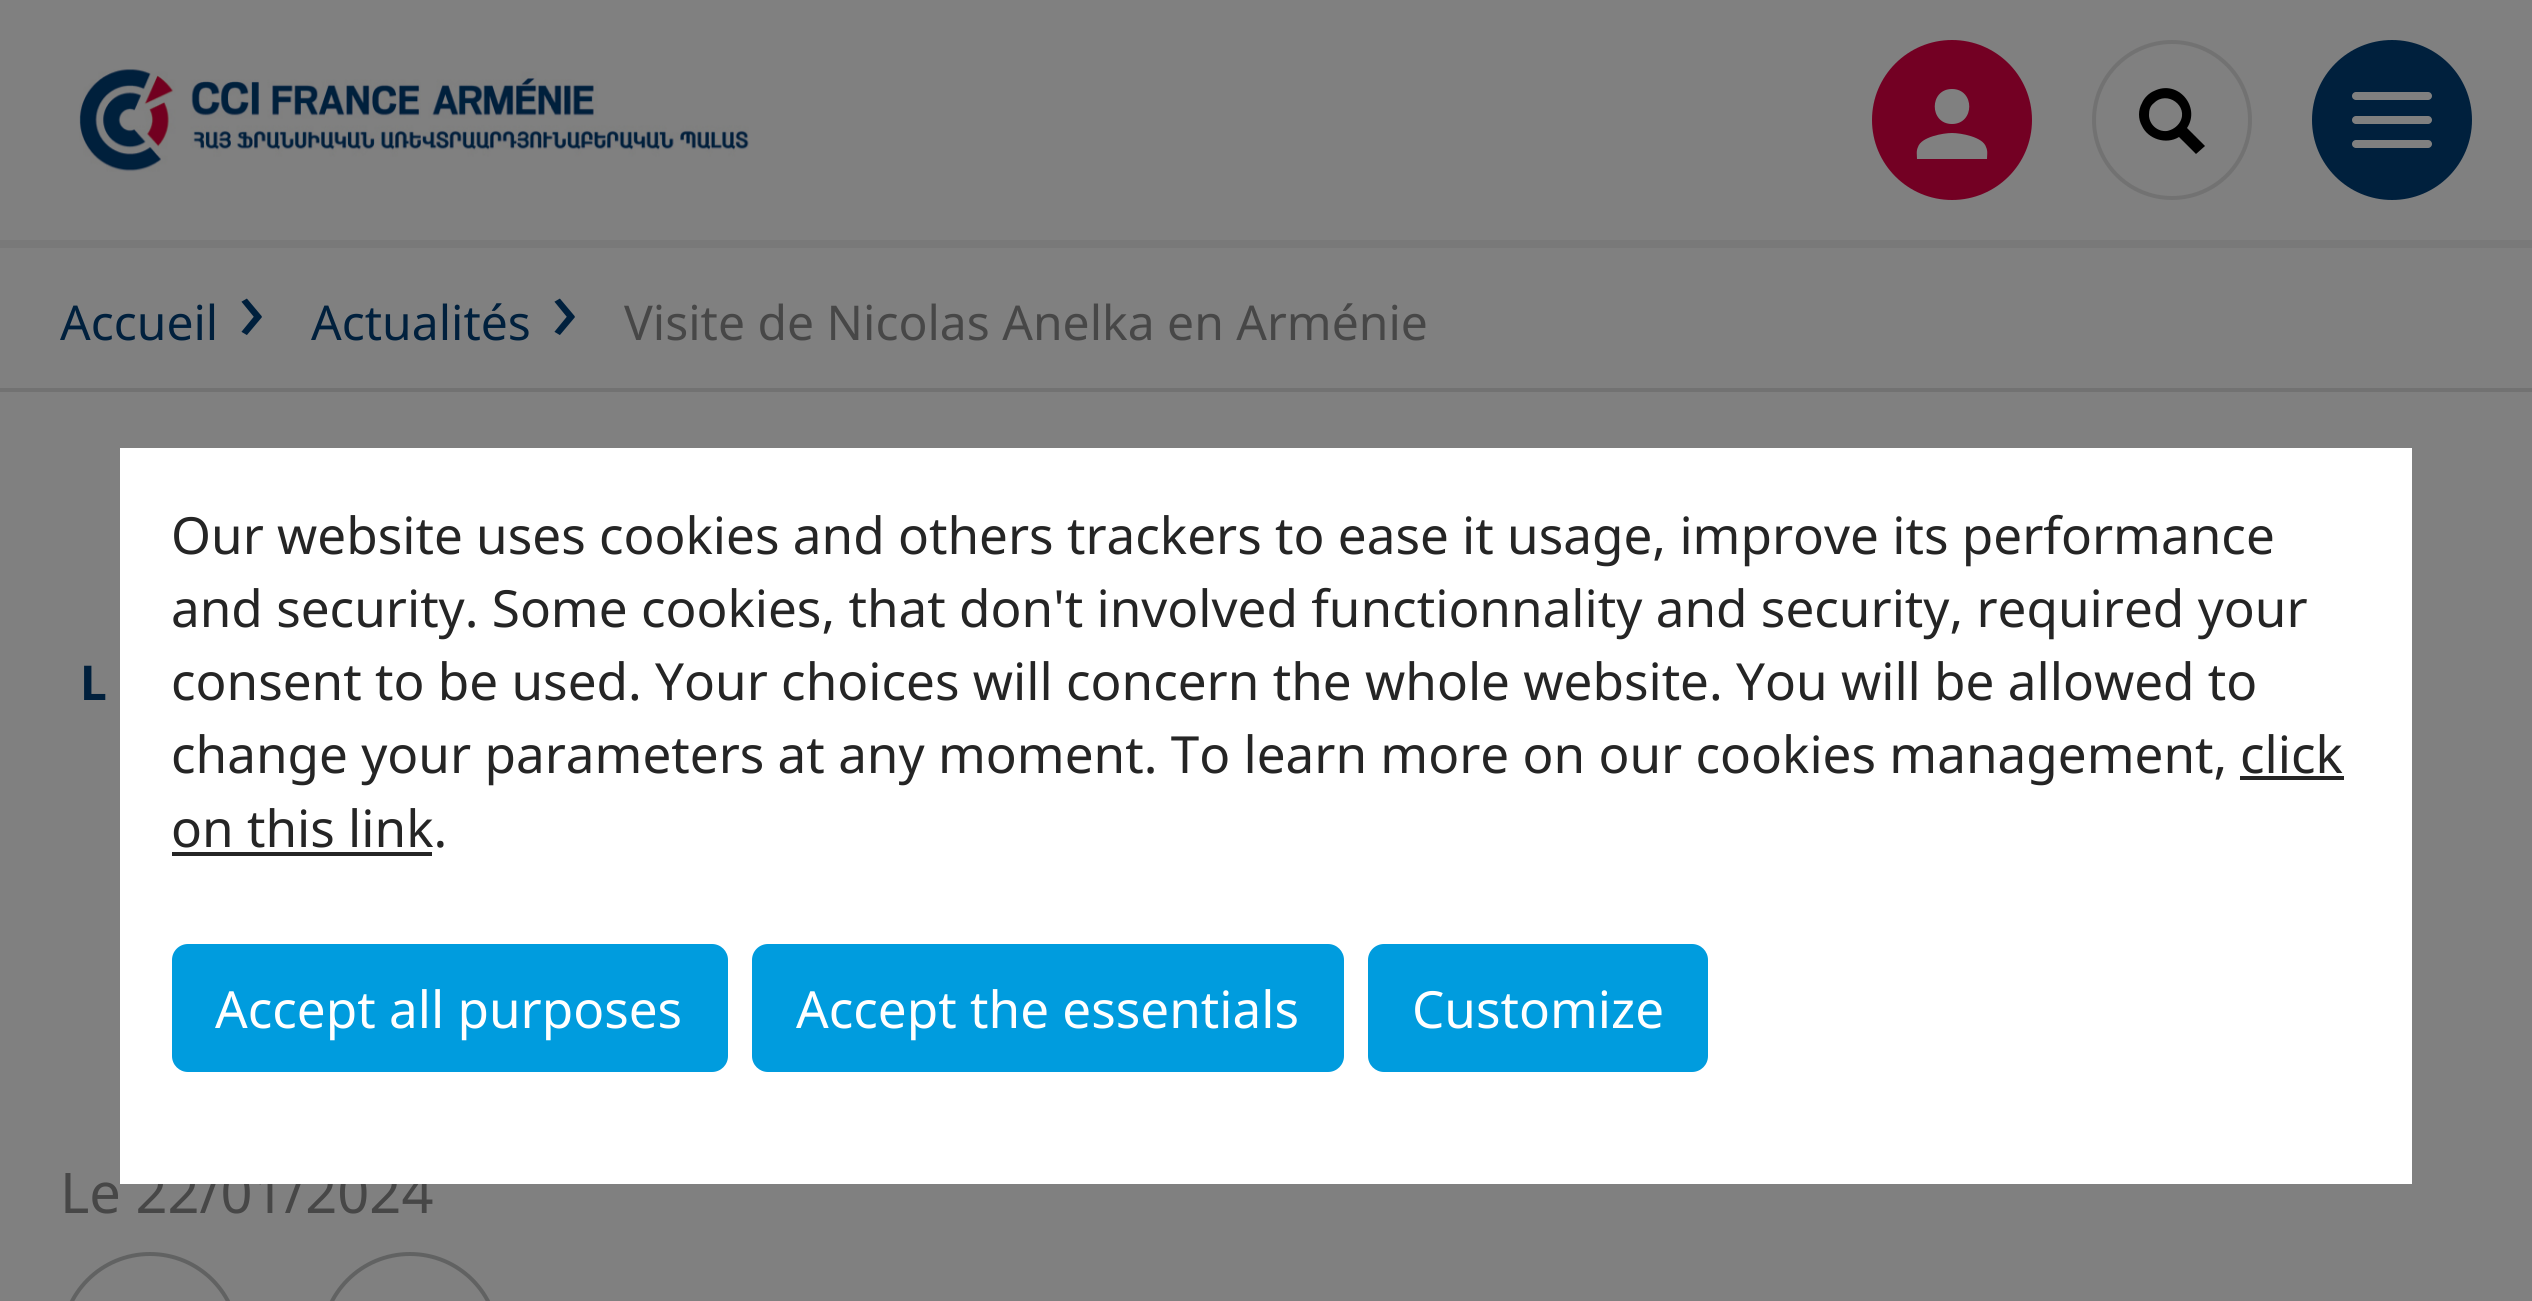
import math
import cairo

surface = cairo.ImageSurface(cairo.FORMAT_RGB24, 2532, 1301)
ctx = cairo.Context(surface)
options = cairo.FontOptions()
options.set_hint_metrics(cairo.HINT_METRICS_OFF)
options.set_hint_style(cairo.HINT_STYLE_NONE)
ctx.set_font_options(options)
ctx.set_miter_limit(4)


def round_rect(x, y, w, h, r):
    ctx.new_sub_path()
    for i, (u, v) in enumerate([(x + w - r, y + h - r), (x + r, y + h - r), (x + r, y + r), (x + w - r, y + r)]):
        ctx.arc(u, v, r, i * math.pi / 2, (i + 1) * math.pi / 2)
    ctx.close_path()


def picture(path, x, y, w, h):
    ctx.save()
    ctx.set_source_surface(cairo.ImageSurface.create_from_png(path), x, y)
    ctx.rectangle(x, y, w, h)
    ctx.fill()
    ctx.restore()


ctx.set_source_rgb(0.502, 0.502, 0.502)
ctx.paint()
ctx.set_source_rgb(0.475, 0.475, 0.475)
ctx.rectangle(0, 240, 2532, 8)
ctx.fill()
picture("img1.png", 79, 69, 670, 103)
ctx.set_source_rgb(0.451, 0, 0.137)
ctx.arc(1952, 120, 80, 0, 2 * math.pi)
ctx.fill()
ctx.set_source_rgb(0.502, 0.502, 0.502)
ctx.new_path()
ctx.move_to(1952, 133)
ctx.curve_to(1961, 133, 1983, 137, 1986, 147)
ctx.curve_to(1988, 151, 1987, 155, 1987, 159)
ctx.line_to(1917, 159)
ctx.curve_to(1917, 155, 1916, 151, 1918, 147)
ctx.curve_to(1921, 137, 1943, 133, 1952, 133)
ctx.close_path()
ctx.move_to(1952, 124)
ctx.curve_to(1929, 124, 1929, 89, 1952, 89)
ctx.curve_to(1975, 89, 1975, 124, 1952, 124)
ctx.close_path()
ctx.fill()
ctx.arc(2172, 120, 78, 0, 2 * math.pi)
ctx.set_source_rgb(0.447, 0.447, 0.447)
ctx.set_line_width(4)
ctx.stroke()
ctx.set_source_rgb(0, 0, 0)
ctx.new_path()
ctx.move_to(2205, 146)
ctx.line_to(2187, 128)
ctx.curve_to(2201, 107, 2178, 79, 2154, 91)
ctx.curve_to(2149, 93, 2144, 98, 2142, 103)
ctx.curve_to(2138, 110, 2138, 119, 2142, 126)
ctx.curve_to(2148, 139, 2166, 145, 2179, 137)
ctx.line_to(2196, 154)
ctx.close_path()
ctx.move_to(2149, 115)
ctx.curve_to(2149, 110, 2150, 106, 2154, 103)
ctx.curve_to(2167, 90, 2189, 106, 2180, 122)
ctx.curve_to(2177, 127, 2172, 130, 2167, 131)
ctx.curve_to(2157, 132, 2149, 124, 2149, 115)
ctx.close_path()
ctx.fill()
ctx.set_source_rgb(0, 0.125, 0.239)
ctx.arc(2392, 120, 78, 0, 2 * math.pi)
ctx.fill_preserve()
ctx.stroke()
ctx.set_source_rgb(0.502, 0.502, 0.502)
round_rect(2352, 92, 80, 8, 4)
ctx.fill()
round_rect(2352, 116, 80, 8, 4)
ctx.fill()
round_rect(2352, 140, 80, 8, 4)
ctx.fill()
ctx.set_source_rgb(0.447, 0.447, 0.447)
ctx.rectangle(0, 388, 2532, 4)
ctx.fill()
ctx.select_font_face("Noto Sans")
ctx.set_font_size(48)
ctx.set_source_rgb(0, 0.125, 0.239)
ctx.move_to(60, 340)
ctx.show_text("Accueil")
ctx.set_font_size(88)
ctx.move_to(238, 340)
ctx.show_text("›")
ctx.set_font_size(48)
ctx.move_to(311, 340)
ctx.show_text("Actualités")
ctx.set_font_size(88)
ctx.move_to(551, 340)
ctx.show_text("›")
ctx.set_font_size(48)
ctx.set_source_rgb(0.278, 0.278, 0.278)
ctx.move_to(624, 340)
ctx.show_text("Visite de Nicolas Anelka en Arménie")
ctx.select_font_face("Noto Sans", cairo.FONT_SLANT_NORMAL, cairo.FONT_WEIGHT_BOLD)
ctx.set_source_rgb(0, 0.125, 0.239)
ctx.move_to(80, 700)
ctx.show_text("L")
ctx.select_font_face("Noto Sans")
ctx.set_font_size(56)
ctx.set_source_rgb(0.278, 0.278, 0.278)
ctx.move_to(60, 1213)
ctx.show_text("Le 22/01/2024")
round_rect(62, 1254, 176, 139, 88)
ctx.set_source_rgb(0.38, 0.384, 0.384)
ctx.stroke()
round_rect(322, 1254, 176, 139, 88)
ctx.stroke()
ctx.set_source_rgb(1, 1, 1)
ctx.rectangle(120, 448, 2292, 736)
ctx.fill()
ctx.set_font_size(51.2)
ctx.set_source_rgb(0.145, 0.145, 0.145)
ctx.move_to(171, 554)
ctx.show_text("Our website uses cookies and others trackers to ease it usage, improve its performance")
ctx.move_to(171, 627)
ctx.show_text("and security. Some cookies, that don't involved functionnality and security, required your")
ctx.move_to(171, 700)
ctx.show_text("consent to be used. Your choices will concern the whole website. You will be allowed to")
ctx.move_to(171, 773)
ctx.show_text("change your parameters at any moment. To learn more on our cookies management,")
ctx.move_to(2240, 773)
ctx.show_text("click")
ctx.rectangle(2240, 776, 104, 4)
ctx.fill()
ctx.move_to(171, 847)
ctx.show_text("on this link.")
ctx.rectangle(172, 852, 260, 4)
ctx.fill()
ctx.set_source_rgb(0, 0.612, 0.871)
round_rect(172, 944, 556, 128, 16)
ctx.fill()
ctx.set_source_rgb(1, 1, 1)
ctx.move_to(215, 1028)
ctx.show_text("Accept all purposes")
ctx.set_source_rgb(0, 0.612, 0.871)
round_rect(752, 944, 592, 128, 16)
ctx.fill()
ctx.set_source_rgb(1, 1, 1)
ctx.move_to(796, 1028)
ctx.show_text("Accept the essentials")
ctx.set_source_rgb(0, 0.612, 0.871)
round_rect(1368, 944, 340, 128, 16)
ctx.fill()
ctx.set_source_rgb(1, 1, 1)
ctx.move_to(1412, 1028)
ctx.show_text("Customize")
surface.write_to_png("page.png")
